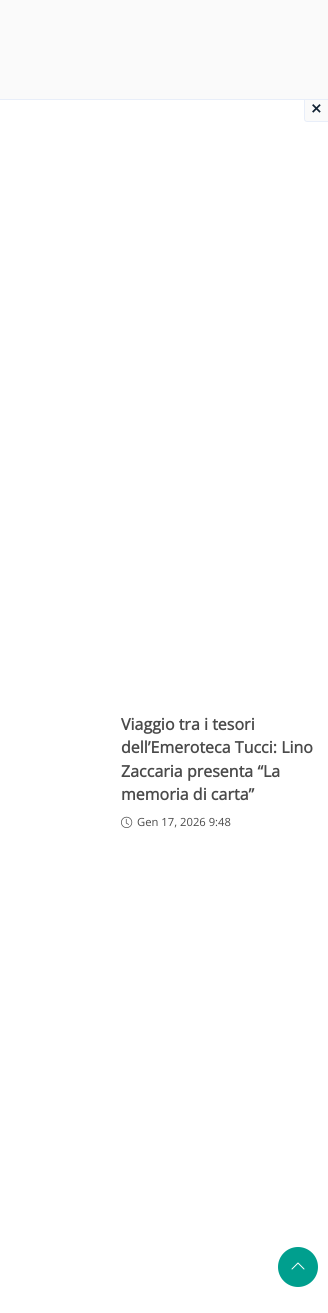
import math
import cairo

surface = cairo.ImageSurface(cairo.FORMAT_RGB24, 328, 1313)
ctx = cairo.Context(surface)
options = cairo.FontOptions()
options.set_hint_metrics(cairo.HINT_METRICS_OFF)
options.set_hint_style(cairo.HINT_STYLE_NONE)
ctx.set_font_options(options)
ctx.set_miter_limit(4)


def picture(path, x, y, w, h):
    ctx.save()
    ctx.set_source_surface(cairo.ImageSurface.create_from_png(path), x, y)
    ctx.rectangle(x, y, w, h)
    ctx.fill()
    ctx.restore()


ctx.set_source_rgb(1, 1, 1)
ctx.paint()
ctx.set_source_rgb(0.98, 0.98, 0.98)
ctx.new_path()
ctx.move_to(304, 98)
ctx.line_to(328, 98)
ctx.line_to(328, 122)
ctx.line_to(307, 122)
ctx.curve_to(305.5, 122, 304, 120.5, 304, 119)
ctx.close_path()
ctx.fill()
ctx.set_source_rgb(0.91, 0.933, 0.976)
ctx.set_fill_rule(cairo.FILL_RULE_EVEN_ODD)
ctx.new_path()
ctx.move_to(304, 98)
ctx.line_to(328, 98)
ctx.line_to(328, 122)
ctx.line_to(307, 122)
ctx.curve_to(305.5, 122, 304, 120.5, 304, 119)
ctx.close_path()
ctx.move_to(305, 98)
ctx.line_to(328, 98)
ctx.line_to(328, 121)
ctx.line_to(307, 121)
ctx.curve_to(306, 121, 305, 120, 305, 119)
ctx.close_path()
ctx.fill()
ctx.set_source_rgb(0.98, 0.98, 0.98)
ctx.rectangle(0, 0, 328, 99)
ctx.fill()
ctx.set_source_rgb(0.91, 0.933, 0.976)
ctx.rectangle(0, 99, 328, 1)
ctx.fill()
ctx.select_font_face("Open Sans", cairo.FONT_SLANT_NORMAL, cairo.FONT_WEIGHT_BOLD)
ctx.set_font_size(18)
ctx.set_source_rgb(0.067, 0.133, 0.2)
ctx.move_to(311, 115)
ctx.show_text("×")
ctx.set_font_size(16)
ctx.set_source_rgb(0.29, 0.29, 0.29)
ctx.move_to(121, 730)
ctx.show_text("Viaggio tra i tesori")
ctx.move_to(121, 753)
ctx.show_text("dell’Emeroteca Tucci: Lino")
ctx.move_to(121, 777)
ctx.show_text("Zaccaria presenta “La")
ctx.move_to(121, 800)
ctx.show_text("memoria di carta”")
picture("img1.png", 121, 816, 12, 12)
ctx.select_font_face("Open Sans")
ctx.set_font_size(11.25)
ctx.move_to(137, 826)
ctx.show_text("Gen 17, 2026 9:48")
ctx.set_source_rgb(0, 0.624, 0.557)
ctx.new_path()
ctx.arc(298, 1267, 20, 0, 2 * math.pi)
ctx.fill()
picture("img2.png", 291, 1262, 14, 8)
surface.write_to_png("page.png")
